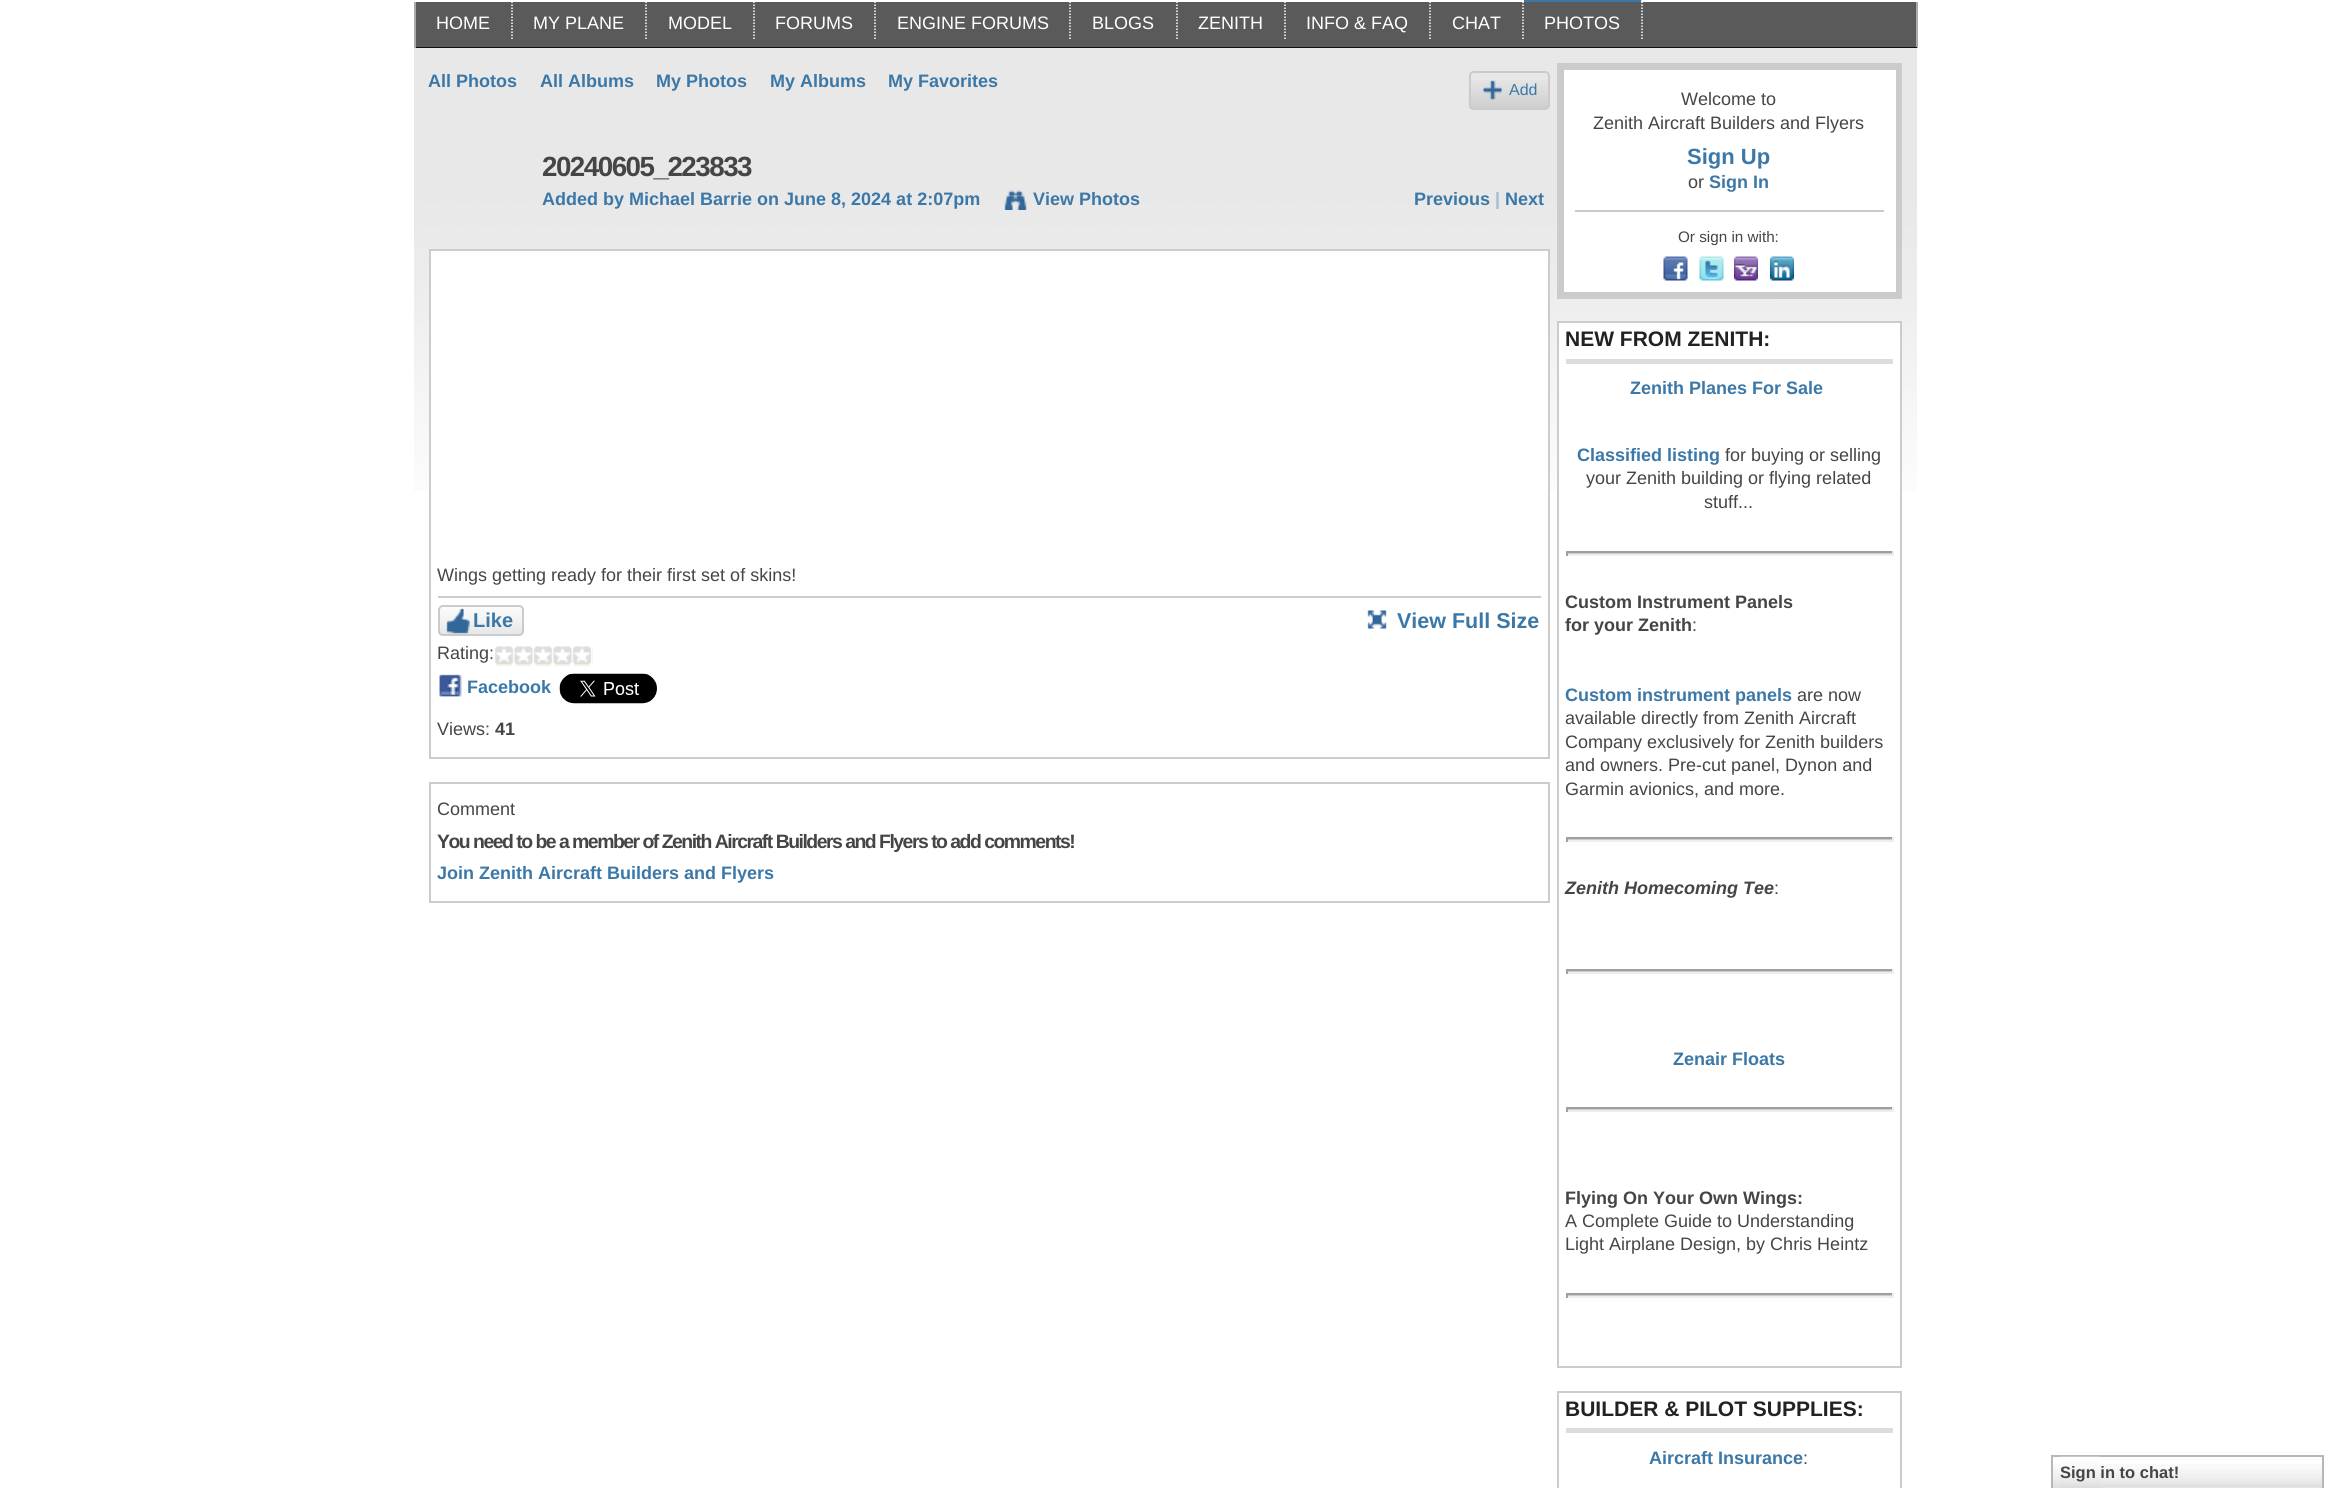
import math
import cairo

surface = cairo.ImageSurface(cairo.FORMAT_RGB24, 2329, 1488)
ctx = cairo.Context(surface)
options = cairo.FontOptions()
options.set_hint_metrics(cairo.HINT_METRICS_OFF)
options.set_hint_style(cairo.HINT_STYLE_NONE)
ctx.set_font_options(options)
ctx.set_miter_limit(4)


def spaced_text(x, y, s, letter, word):
    ctx.move_to(x, y)
    for ch in s:
        ctx.show_text(ch)
        ctx.rel_move_to(letter + word * (ch == ' '), 0)


def round_rect(x, y, w, h, r):
    ctx.new_sub_path()
    for i, (u, v) in enumerate([(x + w - r, y + h - r), (x + r, y + h - r), (x + r, y + r), (x + w - r, y + r)]):
        ctx.arc(u, v, r, i * math.pi / 2, (i + 1) * math.pi / 2)
    ctx.close_path()


def picture(path, x, y, w, h):
    ctx.save()
    ctx.set_source_surface(cairo.ImageSurface.create_from_png(path), x, y)
    ctx.rectangle(x, y, w, h)
    ctx.fill()
    ctx.restore()


ctx.set_source_rgb(1, 1, 1)
ctx.paint()
ctx.set_source_rgb(0.353, 0.353, 0.353)
ctx.rectangle(416, 2, 1500, 45)
ctx.fill()
ctx.set_source_rgb(0.667, 0.667, 0.667)
ctx.rectangle(1916, 2, 2, 46)
ctx.fill()
ctx.set_source_rgb(0.067, 0.067, 0.067)
ctx.rectangle(414, 47, 1503, 1)
ctx.fill()
ctx.set_source_rgb(0.667, 0.667, 0.667)
ctx.rectangle(414, 2, 2, 46)
ctx.fill()
ctx.new_path()
ctx.move_to(512, -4.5)
ctx.line_to(512, 40.5)
ctx.set_source_rgb(1, 1, 1)
ctx.set_line_width(1.5)
ctx.set_dash([1.5, 1.5])
ctx.stroke()
ctx.select_font_face("Liberation Sans")
ctx.set_font_size(18)
ctx.move_to(436, 29)
ctx.show_text("HOME")
ctx.new_path()
ctx.move_to(646, -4.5)
ctx.line_to(646, 40.5)
ctx.stroke()
ctx.move_to(533, 29)
ctx.show_text("MY PLANE")
ctx.new_path()
ctx.move_to(754, -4.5)
ctx.line_to(754, 40.5)
ctx.stroke()
ctx.move_to(668, 29)
ctx.show_text("MODEL")
ctx.new_path()
ctx.move_to(875, -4.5)
ctx.line_to(875, 40.5)
ctx.stroke()
ctx.move_to(775, 29)
ctx.show_text("FORUMS")
ctx.new_path()
ctx.move_to(1070, -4.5)
ctx.line_to(1070, 40.5)
ctx.stroke()
ctx.move_to(897, 29)
ctx.show_text("ENGINE FORUMS")
ctx.new_path()
ctx.move_to(1177, -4.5)
ctx.line_to(1177, 40.5)
ctx.stroke()
ctx.move_to(1092, 29)
ctx.show_text("BLOGS")
ctx.new_path()
ctx.move_to(1285, -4.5)
ctx.line_to(1285, 40.5)
ctx.stroke()
ctx.move_to(1198, 29)
ctx.show_text("ZENITH")
ctx.new_path()
ctx.move_to(1430, -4.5)
ctx.line_to(1430, 40.5)
ctx.stroke()
ctx.move_to(1306, 29)
ctx.show_text("INFO & FAQ")
ctx.new_path()
ctx.move_to(1523, -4.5)
ctx.line_to(1523, 40.5)
ctx.stroke()
ctx.move_to(1452, 29)
ctx.show_text("CHAT")
ctx.set_source_rgb(0.235, 0.471, 0.655)
ctx.new_path()
ctx.move_to(1524, -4)
ctx.line_to(1642, -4)
ctx.line_to(1641, 2)
ctx.line_to(1524, 2)
ctx.close_path()
ctx.fill()
ctx.new_path()
ctx.move_to(1642, -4.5)
ctx.line_to(1642, 40.5)
ctx.set_source_rgb(1, 1, 1)
ctx.stroke()
ctx.move_to(1544, 29)
ctx.show_text("PHOTOS")
picture("img1.png", 414, 48, 1503, 443)
ctx.select_font_face("Liberation Sans", cairo.FONT_SLANT_NORMAL, cairo.FONT_WEIGHT_BOLD)
ctx.set_source_rgb(0.235, 0.471, 0.655)
ctx.move_to(428, 87)
ctx.show_text("All Photos")
ctx.move_to(540, 87)
ctx.show_text("All Albums")
ctx.move_to(656, 87)
ctx.show_text("My Photos")
ctx.move_to(770, 87)
ctx.show_text("My Albums")
ctx.move_to(888, 87)
ctx.show_text("My Favorites")
picture("img2.png", 1468, 80, 82, 30)
round_rect(1470, 72, 79, 37, 4)
ctx.set_source_rgb(0.796, 0.796, 0.796)
ctx.set_line_width(2)
ctx.set_dash([])
ctx.stroke()
picture("img3.png", 1483, 80, 19, 20)
ctx.select_font_face("Liberation Sans")
ctx.set_font_size(16)
ctx.set_source_rgb(0.235, 0.471, 0.655)
ctx.move_to(1509, 95)
ctx.show_text("Add")
ctx.select_font_face("Liberation Sans", cairo.FONT_SLANT_NORMAL, cairo.FONT_WEIGHT_BOLD)
ctx.set_font_size(27.75)
ctx.set_source_rgb(0.271, 0.271, 0.271)
spaced_text(542, 176, "20240605_223833", -1.5, 0)
ctx.set_font_size(18)
ctx.set_source_rgb(0.235, 0.471, 0.655)
ctx.move_to(542, 205)
ctx.show_text("Added by Michael Barrie on June 8, 2024 at 2:07pm")
picture("img4.png", 1004, 190, 23, 20)
ctx.move_to(1033, 205)
ctx.show_text("View Photos")
ctx.move_to(1414, 205)
ctx.show_text("Previous")
ctx.set_source_rgb(0.639, 0.733, 0.808)
ctx.move_to(1495, 205)
ctx.show_text("|")
ctx.set_source_rgb(0.235, 0.471, 0.655)
ctx.move_to(1505, 205)
ctx.show_text("Next")
ctx.set_source_rgb(1, 1, 1)
ctx.rectangle(431, 251, 1117, 240)
ctx.fill()
ctx.rectangle(430, 250, 1119, 508)
ctx.set_source_rgb(0.8, 0.8, 0.8)
ctx.stroke()
ctx.rectangle(438, 596, 1103, 2)
ctx.fill()
ctx.select_font_face("Liberation Sans")
ctx.set_source_rgb(0.271, 0.271, 0.271)
ctx.move_to(437, 581)
ctx.show_text("Wings getting ready for their first set of skins!")
picture("img5.png", 438, 607, 86, 29)
round_rect(439, 606, 84, 29, 4)
ctx.set_source_rgb(0.796, 0.796, 0.796)
ctx.stroke()
picture("img6.png", 446, 608, 24, 26)
ctx.select_font_face("Liberation Sans", cairo.FONT_SLANT_NORMAL, cairo.FONT_WEIGHT_BOLD)
ctx.set_font_size(20)
ctx.set_source_rgb(0.235, 0.471, 0.655)
ctx.move_to(473, 627)
ctx.show_text("Like")
ctx.select_font_face("Liberation Sans")
ctx.set_font_size(18)
ctx.set_source_rgb(0.271, 0.271, 0.271)
ctx.move_to(437, 659)
ctx.show_text("Rating:")
picture("img7.png", 495, 646, 98, 20)
picture("img8.png", 439, 674, 23, 23)
ctx.select_font_face("Liberation Sans", cairo.FONT_SLANT_NORMAL, cairo.FONT_WEIGHT_BOLD)
ctx.set_source_rgb(0.235, 0.471, 0.655)
ctx.move_to(467, 693)
ctx.show_text("Facebook")
picture("img9.png", 559, 673, 98, 31)
ctx.select_font_face("Liberation Sans")
ctx.set_source_rgb(0.271, 0.271, 0.271)
ctx.move_to(437, 735)
ctx.show_text("Views:")
ctx.select_font_face("Liberation Sans", cairo.FONT_SLANT_NORMAL, cairo.FONT_WEIGHT_BOLD)
ctx.move_to(495, 735)
ctx.show_text("41")
picture("img10.png", 1367, 610, 20, 19)
ctx.set_font_size(21.5)
ctx.set_source_rgb(0.235, 0.471, 0.655)
ctx.move_to(1397, 628)
ctx.show_text("View Full Size")
ctx.rectangle(430, 783, 1119, 119)
ctx.set_source_rgb(0.8, 0.8, 0.8)
ctx.stroke()
ctx.select_font_face("Liberation Sans")
ctx.set_font_size(18)
ctx.set_source_rgb(0.271, 0.271, 0.271)
ctx.move_to(437, 815)
ctx.show_text("Comment")
ctx.select_font_face("Liberation Sans", cairo.FONT_SLANT_NORMAL, cairo.FONT_WEIGHT_BOLD)
ctx.set_font_size(19.4)
spaced_text(437, 848, "You need to be a member of Zenith Aircraft Builders and Flyers to add comments!", -1.5, 0)
ctx.set_font_size(18)
ctx.set_source_rgb(0.235, 0.471, 0.655)
ctx.move_to(437, 879)
ctx.show_text("Join Zenith Aircraft Builders and Flyers")
ctx.set_source_rgb(1, 1, 1)
ctx.rectangle(1564, 70, 332, 222)
ctx.fill()
ctx.rectangle(1558, 64, 343, 234)
ctx.set_source_rgb(0.8, 0.8, 0.8)
ctx.stroke()
ctx.rectangle(1561.5, 67.5, 337, 227)
ctx.set_source_rgb(0.796, 0.796, 0.796)
ctx.set_line_width(5)
ctx.stroke()
ctx.select_font_face("Liberation Sans")
ctx.set_source_rgb(0.271, 0.271, 0.271)
ctx.move_to(1681, 105)
ctx.show_text("Welcome to")
ctx.move_to(1593, 129)
ctx.show_text("Zenith Aircraft Builders and Flyers")
ctx.select_font_face("Liberation Sans", cairo.FONT_SLANT_NORMAL, cairo.FONT_WEIGHT_BOLD)
ctx.set_font_size(22)
ctx.set_source_rgb(0.235, 0.471, 0.655)
ctx.move_to(1687, 164)
ctx.show_text("Sign Up")
ctx.select_font_face("Liberation Sans")
ctx.set_font_size(18)
ctx.set_source_rgb(0.271, 0.271, 0.271)
ctx.move_to(1688, 188)
ctx.show_text("or")
ctx.select_font_face("Liberation Sans", cairo.FONT_SLANT_NORMAL, cairo.FONT_WEIGHT_BOLD)
ctx.set_source_rgb(0.235, 0.471, 0.655)
ctx.move_to(1709, 188)
ctx.show_text("Sign In")
ctx.set_source_rgb(0.796, 0.796, 0.796)
ctx.rectangle(1575, 210, 309, 2)
ctx.fill()
ctx.select_font_face("Liberation Sans")
ctx.set_font_size(15.25)
ctx.set_source_rgb(0.271, 0.271, 0.271)
ctx.move_to(1678, 242)
ctx.show_text("Or sign in with:")
picture("img11.png", 1663, 256, 25, 25)
picture("img12.png", 1699, 256, 25, 25)
picture("img13.png", 1734, 256, 24, 25)
picture("img14.png", 1770, 256, 24, 25)
ctx.set_source_rgb(1, 1, 1)
ctx.rectangle(1559, 323, 341, 168)
ctx.fill()
ctx.rectangle(1558, 322, 343, 1045)
ctx.set_source_rgb(0.8, 0.8, 0.8)
ctx.set_line_width(2)
ctx.stroke()
ctx.set_source_rgb(0.863, 0.863, 0.863)
ctx.rectangle(1566, 359, 327, 5)
ctx.fill()
ctx.select_font_face("Liberation Sans", cairo.FONT_SLANT_NORMAL, cairo.FONT_WEIGHT_BOLD)
ctx.set_font_size(21)
ctx.set_source_rgb(0.133, 0.133, 0.133)
ctx.move_to(1565, 346)
ctx.show_text("NEW FROM ZENITH:")
ctx.set_font_size(18)
ctx.set_source_rgb(0.235, 0.471, 0.655)
ctx.move_to(1630, 394)
ctx.show_text("Zenith Planes For Sale")
ctx.move_to(1577, 461)
ctx.show_text("Classified listing")
ctx.select_font_face("Liberation Sans")
ctx.set_source_rgb(0.271, 0.271, 0.271)
ctx.move_to(1725, 461)
ctx.show_text("for buying or selling")
ctx.move_to(1586, 484)
ctx.show_text("your Zenith building or flying related")
ctx.move_to(1704, 508)
ctx.show_text("stuff...")
ctx.set_source_rgb(0.8, 0.8, 0.8)
ctx.rectangle(1566, 553, 327, 1)
ctx.fill()
ctx.set_source_rgb(0.624, 0.624, 0.624)
ctx.rectangle(1566, 551, 327, 2)
ctx.fill()
ctx.set_source_rgb(0.933, 0.933, 0.933)
ctx.rectangle(1892, 551, 2, 5)
ctx.fill()
ctx.rectangle(1566, 554, 327, 2)
ctx.fill()
ctx.set_source_rgb(0.624, 0.624, 0.624)
ctx.rectangle(1566, 551, 2, 5)
ctx.fill()
ctx.select_font_face("Liberation Sans", cairo.FONT_SLANT_NORMAL, cairo.FONT_WEIGHT_BOLD)
ctx.set_source_rgb(0.271, 0.271, 0.271)
ctx.move_to(1565, 608)
ctx.show_text("Custom Instrument Panels")
ctx.move_to(1565, 631)
ctx.show_text("for your Zenith")
ctx.select_font_face("Liberation Sans")
ctx.move_to(1692, 631)
ctx.show_text(":")
ctx.select_font_face("Liberation Sans", cairo.FONT_SLANT_NORMAL, cairo.FONT_WEIGHT_BOLD)
ctx.set_source_rgb(0.235, 0.471, 0.655)
ctx.move_to(1565, 701)
ctx.show_text("Custom instrument panels")
ctx.select_font_face("Liberation Sans")
ctx.set_source_rgb(0.271, 0.271, 0.271)
ctx.move_to(1797, 701)
ctx.show_text("are now")
ctx.move_to(1565, 724)
ctx.show_text("available directly from Zenith Aircraft")
ctx.move_to(1565, 748)
ctx.show_text("Company exclusively for Zenith builders")
ctx.move_to(1565, 771)
ctx.show_text("and owners. Pre-cut panel, Dynon and")
ctx.move_to(1565, 795)
ctx.show_text("Garmin avionics, and more.")
ctx.set_source_rgb(0.8, 0.8, 0.8)
ctx.rectangle(1566, 839, 327, 1)
ctx.fill()
ctx.set_source_rgb(0.624, 0.624, 0.624)
ctx.rectangle(1566, 837, 327, 2)
ctx.fill()
ctx.set_source_rgb(0.933, 0.933, 0.933)
ctx.rectangle(1892, 837, 2, 5)
ctx.fill()
ctx.rectangle(1566, 840, 327, 2)
ctx.fill()
ctx.set_source_rgb(0.624, 0.624, 0.624)
ctx.rectangle(1566, 837, 2, 5)
ctx.fill()
ctx.select_font_face("Liberation Sans", cairo.FONT_SLANT_ITALIC, cairo.FONT_WEIGHT_BOLD)
ctx.set_source_rgb(0.271, 0.271, 0.271)
ctx.move_to(1565, 894)
ctx.show_text("Zenith Homecoming Tee")
ctx.select_font_face("Liberation Sans")
ctx.move_to(1774, 894)
ctx.show_text(":")
ctx.set_source_rgb(0.8, 0.8, 0.8)
ctx.rectangle(1566, 971, 327, 1)
ctx.fill()
ctx.set_source_rgb(0.624, 0.624, 0.624)
ctx.rectangle(1566, 969, 327, 2)
ctx.fill()
ctx.set_source_rgb(0.933, 0.933, 0.933)
ctx.rectangle(1892, 969, 2, 5)
ctx.fill()
ctx.rectangle(1566, 972, 327, 2)
ctx.fill()
ctx.set_source_rgb(0.624, 0.624, 0.624)
ctx.rectangle(1566, 969, 2, 5)
ctx.fill()
ctx.select_font_face("Liberation Sans", cairo.FONT_SLANT_NORMAL, cairo.FONT_WEIGHT_BOLD)
ctx.set_source_rgb(0.235, 0.471, 0.655)
ctx.move_to(1673, 1065)
ctx.show_text("Zenair Floats")
ctx.set_source_rgb(0.8, 0.8, 0.8)
ctx.rectangle(1566, 1109, 327, 1)
ctx.fill()
ctx.set_source_rgb(0.624, 0.624, 0.624)
ctx.rectangle(1566, 1107, 327, 2)
ctx.fill()
ctx.set_source_rgb(0.933, 0.933, 0.933)
ctx.rectangle(1892, 1107, 2, 5)
ctx.fill()
ctx.rectangle(1566, 1110, 327, 2)
ctx.fill()
ctx.set_source_rgb(0.624, 0.624, 0.624)
ctx.rectangle(1566, 1107, 2, 5)
ctx.fill()
ctx.set_source_rgb(0.271, 0.271, 0.271)
ctx.move_to(1565, 1204)
ctx.show_text("Flying On Your Own Wings:")
ctx.select_font_face("Liberation Sans")
ctx.move_to(1565, 1227)
ctx.show_text("A Complete Guide to Understanding")
ctx.move_to(1565, 1250)
ctx.show_text("Light Airplane Design, by Chris Heintz")
ctx.set_source_rgb(0.8, 0.8, 0.8)
ctx.rectangle(1566, 1295, 327, 1)
ctx.fill()
ctx.set_source_rgb(0.624, 0.624, 0.624)
ctx.rectangle(1566, 1293, 327, 2)
ctx.fill()
ctx.set_source_rgb(0.933, 0.933, 0.933)
ctx.rectangle(1892, 1293, 2, 5)
ctx.fill()
ctx.rectangle(1566, 1296, 327, 2)
ctx.fill()
ctx.set_source_rgb(0.624, 0.624, 0.624)
ctx.rectangle(1566, 1293, 2, 5)
ctx.fill()
ctx.rectangle(1558, 1392, 343, 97)
ctx.set_source_rgb(0.8, 0.8, 0.8)
ctx.stroke()
ctx.set_source_rgb(0.863, 0.863, 0.863)
ctx.rectangle(1566, 1428, 327, 5)
ctx.fill()
ctx.select_font_face("Liberation Sans", cairo.FONT_SLANT_NORMAL, cairo.FONT_WEIGHT_BOLD)
ctx.set_font_size(21)
ctx.set_source_rgb(0.133, 0.133, 0.133)
ctx.move_to(1565, 1416)
ctx.show_text("BUILDER & PILOT SUPPLIES:")
ctx.set_font_size(18)
ctx.set_source_rgb(0.235, 0.471, 0.655)
ctx.move_to(1649, 1464)
ctx.show_text("Aircraft Insurance")
ctx.select_font_face("Liberation Sans")
ctx.set_source_rgb(0.271, 0.271, 0.271)
ctx.move_to(1803, 1464)
ctx.show_text(":")
picture("img15.png", 2053, 1464, 269, 24)
ctx.rectangle(2052, 1456, 271, 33)
ctx.set_source_rgb(0.718, 0.718, 0.718)
ctx.stroke()
picture("img16.png", 2059, 1456, 41, 32)
ctx.select_font_face("Liberation Sans", cairo.FONT_SLANT_NORMAL, cairo.FONT_WEIGHT_BOLD)
ctx.set_font_size(16.5)
ctx.set_source_rgb(0.271, 0.271, 0.271)
ctx.move_to(2060, 1478)
ctx.show_text("Sign in to chat!")
surface.write_to_png("page.png")
